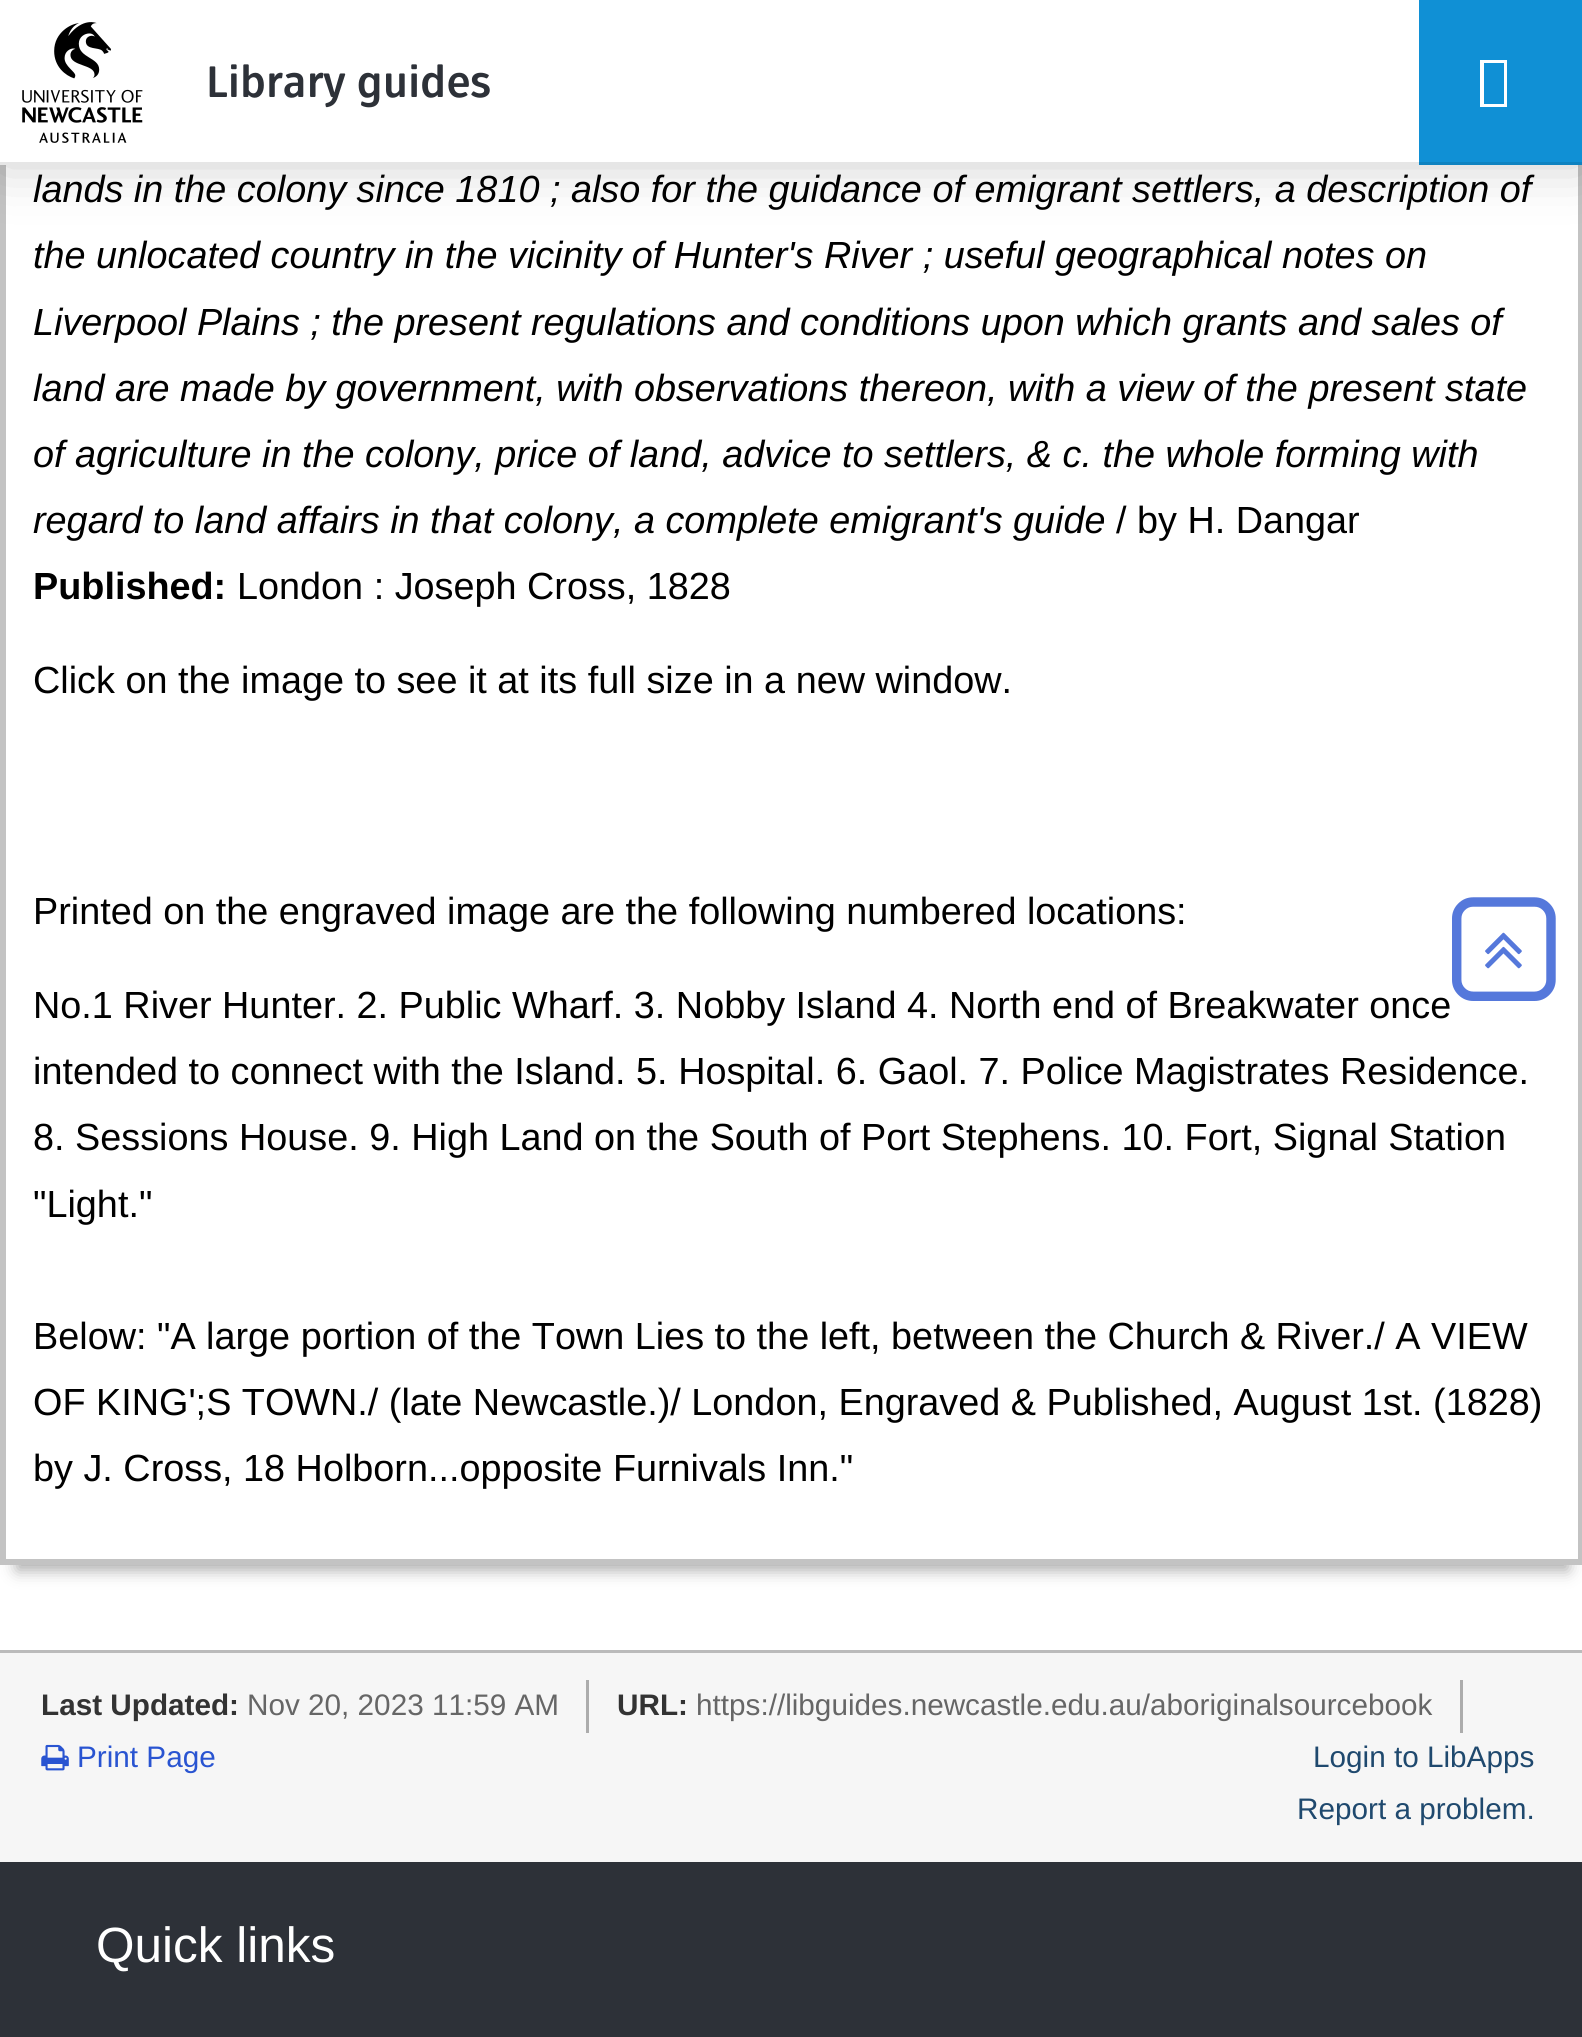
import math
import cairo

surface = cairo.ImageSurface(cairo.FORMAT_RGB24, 1582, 2037)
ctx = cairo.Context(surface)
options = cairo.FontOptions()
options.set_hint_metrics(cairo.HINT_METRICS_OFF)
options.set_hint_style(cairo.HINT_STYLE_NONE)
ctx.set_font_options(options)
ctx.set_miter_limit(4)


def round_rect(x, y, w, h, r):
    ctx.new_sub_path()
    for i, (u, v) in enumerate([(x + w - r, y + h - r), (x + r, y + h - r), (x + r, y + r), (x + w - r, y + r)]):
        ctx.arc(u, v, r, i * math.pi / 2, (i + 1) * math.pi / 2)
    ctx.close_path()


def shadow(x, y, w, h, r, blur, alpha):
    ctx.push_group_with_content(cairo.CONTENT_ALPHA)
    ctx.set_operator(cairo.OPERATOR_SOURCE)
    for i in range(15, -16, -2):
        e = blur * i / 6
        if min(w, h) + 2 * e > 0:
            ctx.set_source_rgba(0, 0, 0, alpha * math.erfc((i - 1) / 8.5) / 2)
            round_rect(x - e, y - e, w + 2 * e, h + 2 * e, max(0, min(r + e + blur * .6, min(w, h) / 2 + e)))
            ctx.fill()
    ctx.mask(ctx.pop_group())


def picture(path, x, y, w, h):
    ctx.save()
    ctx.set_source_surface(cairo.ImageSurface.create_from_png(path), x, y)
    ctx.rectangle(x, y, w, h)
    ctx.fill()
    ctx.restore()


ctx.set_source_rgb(1, 1, 1)
ctx.paint()
ctx.set_source_rgb(0.667, 0.667, 0.667)
shadow(17, -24, 1551, 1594, 0, 8, 1)
ctx.set_source_rgb(1, 1, 1)
ctx.rectangle(6, 165, 1572, 1394)
ctx.fill()
ctx.rectangle(3, -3, 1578, 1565)
ctx.set_source_rgb(0.765, 0.765, 0.765)
ctx.set_line_width(6)
ctx.stroke()
ctx.set_source_rgb(0, 0, 0)
shadow(0, 0, 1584, 165, 0, 27.5, 0.2)
ctx.set_source_rgb(1, 1, 1)
ctx.rectangle(0, 0, 1419, 165)
ctx.fill()
picture("img1.png", 22, 22, 121, 121)
ctx.select_font_face("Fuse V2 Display", cairo.FONT_SLANT_NORMAL, cairo.FONT_WEIGHT_BOLD)
ctx.set_font_size(44)
ctx.set_source_rgb(0.176, 0.192, 0.22)
ctx.move_to(206, 97)
ctx.show_text("Library guides")
ctx.set_source_rgb(0.063, 0.565, 0.835)
ctx.rectangle(1419, 0, 163, 165)
ctx.fill()
ctx.set_source_rgb(1, 1, 1)
ctx.new_path()
ctx.move_to(1480, 107)
ctx.line_to(1480, 60)
ctx.line_to(1507, 60)
ctx.line_to(1507, 107)
ctx.close_path()
ctx.move_to(1484, 104)
ctx.line_to(1504, 104)
ctx.line_to(1504, 63)
ctx.line_to(1484, 63)
ctx.close_path()
ctx.fill()
ctx.set_source_rgba(0, 0, 0, 0.1)
ctx.rectangle(0, 162, 1582, 3)
ctx.fill()
ctx.select_font_face("Liberation Sans", cairo.FONT_SLANT_ITALIC)
ctx.set_font_size(37.8)
ctx.set_source_rgb(0, 0, 0)
ctx.move_to(33, 202)
ctx.show_text("lands in the colony since 1810 ; also for the guidance of emigrant settlers, a description of")
ctx.move_to(33, 268)
ctx.show_text("the unlocated country in the vicinity of Hunter's River ; useful geographical notes on")
ctx.move_to(33, 335)
ctx.show_text("Liverpool Plains ; the present regulations and conditions upon which grants and sales of")
ctx.move_to(33, 401)
ctx.show_text("land are made by government, with observations thereon, with a view of the present state")
ctx.move_to(33, 467)
ctx.show_text("of agriculture in the colony, price of land, advice to settlers, & c. the whole forming with")
ctx.move_to(33, 533)
ctx.show_text("regard to land affairs in that colony, a complete emigrant's guide")
ctx.select_font_face("Liberation Sans")
ctx.move_to(1116, 533)
ctx.show_text("/ by H. Dangar")
ctx.select_font_face("Liberation Sans", cairo.FONT_SLANT_NORMAL, cairo.FONT_WEIGHT_BOLD)
ctx.move_to(33, 599)
ctx.show_text("Published:")
ctx.select_font_face("Liberation Sans")
ctx.move_to(237, 599)
ctx.show_text("London : Joseph Cross, 1828")
ctx.move_to(33, 693)
ctx.show_text("Click on the image to see it at its full size in a new window.")
ctx.move_to(33, 924)
ctx.show_text("Printed on the engraved image are the following numbered locations:")
ctx.move_to(33, 1018)
ctx.show_text("No.1 River Hunter. 2. Public Wharf. 3. Nobby Island 4. North end of Breakwater once")
ctx.move_to(33, 1084)
ctx.show_text("intended to connect with the Island. 5. Hospital. 6. Gaol. 7. Police Magistrates Residence.")
ctx.move_to(33, 1150)
ctx.show_text("8. Sessions House. 9. High Land on the South of Port Stephens. 10. Fort, Signal Station")
ctx.move_to(33, 1217)
ctx.show_text("\"Light.\"")
ctx.move_to(33, 1349)
ctx.show_text("Below: \"A large portion of the Town Lies to the left, between the Church & River./ A VIEW")
ctx.move_to(33, 1415)
ctx.show_text("OF KING';S TOWN./ (late Newcastle.)/ London, Engraved & Published, August 1st. (1828)")
ctx.move_to(33, 1481)
ctx.show_text("by J. Cross, 18 Holborn...opposite Furnivals Inn.\"")
picture("img2.png", 1452, 897, 104, 104)
picture("img3.png", 1485, 932, 37, 37)
ctx.set_source_rgb(0.961, 0.961, 0.961)
ctx.rectangle(0, 1653, 1582, 209)
ctx.fill()
ctx.set_source_rgb(0.733, 0.733, 0.733)
ctx.rectangle(0, 1650, 1582, 3)
ctx.fill()
ctx.set_source_rgb(0.675, 0.675, 0.675)
ctx.rectangle(586, 1680, 3, 53)
ctx.fill()
ctx.select_font_face("Liberation Sans", cairo.FONT_SLANT_NORMAL, cairo.FONT_WEIGHT_BOLD)
ctx.set_font_size(29.7)
ctx.set_source_rgb(0.2, 0.2, 0.2)
ctx.move_to(41, 1715)
ctx.show_text("Last Updated:")
ctx.select_font_face("Liberation Sans")
ctx.set_source_rgb(0.4, 0.4, 0.4)
ctx.move_to(247, 1715)
ctx.show_text("Nov 20, 2023 11:59 AM")
ctx.set_source_rgb(0.675, 0.675, 0.675)
ctx.rectangle(1460, 1680, 3, 53)
ctx.fill()
ctx.select_font_face("Liberation Sans", cairo.FONT_SLANT_NORMAL, cairo.FONT_WEIGHT_BOLD)
ctx.set_source_rgb(0.2, 0.2, 0.2)
ctx.move_to(617, 1715)
ctx.show_text("URL:")
ctx.select_font_face("Liberation Sans")
ctx.set_source_rgb(0.4, 0.4, 0.4)
ctx.move_to(696, 1715)
ctx.show_text("https://libguides.newcastle.edu.au/aboriginalsourcebook")
picture("img4.png", 41, 1744, 28, 27)
ctx.set_source_rgb(0.161, 0.329, 0.82)
ctx.move_to(77, 1767)
ctx.show_text("Print Page")
ctx.set_source_rgb(0.122, 0.286, 0.431)
ctx.move_to(1313, 1767)
ctx.show_text("Login to LibApps")
ctx.move_to(1297, 1819)
ctx.show_text("Report a problem.")
ctx.set_source_rgb(0.176, 0.192, 0.22)
ctx.rectangle(0, 1862, 1582, 175)
ctx.fill()
ctx.set_font_size(49.5)
ctx.set_source_rgb(1, 1, 1)
ctx.move_to(96, 1962)
ctx.show_text("Quick links")
surface.write_to_png("page.png")
